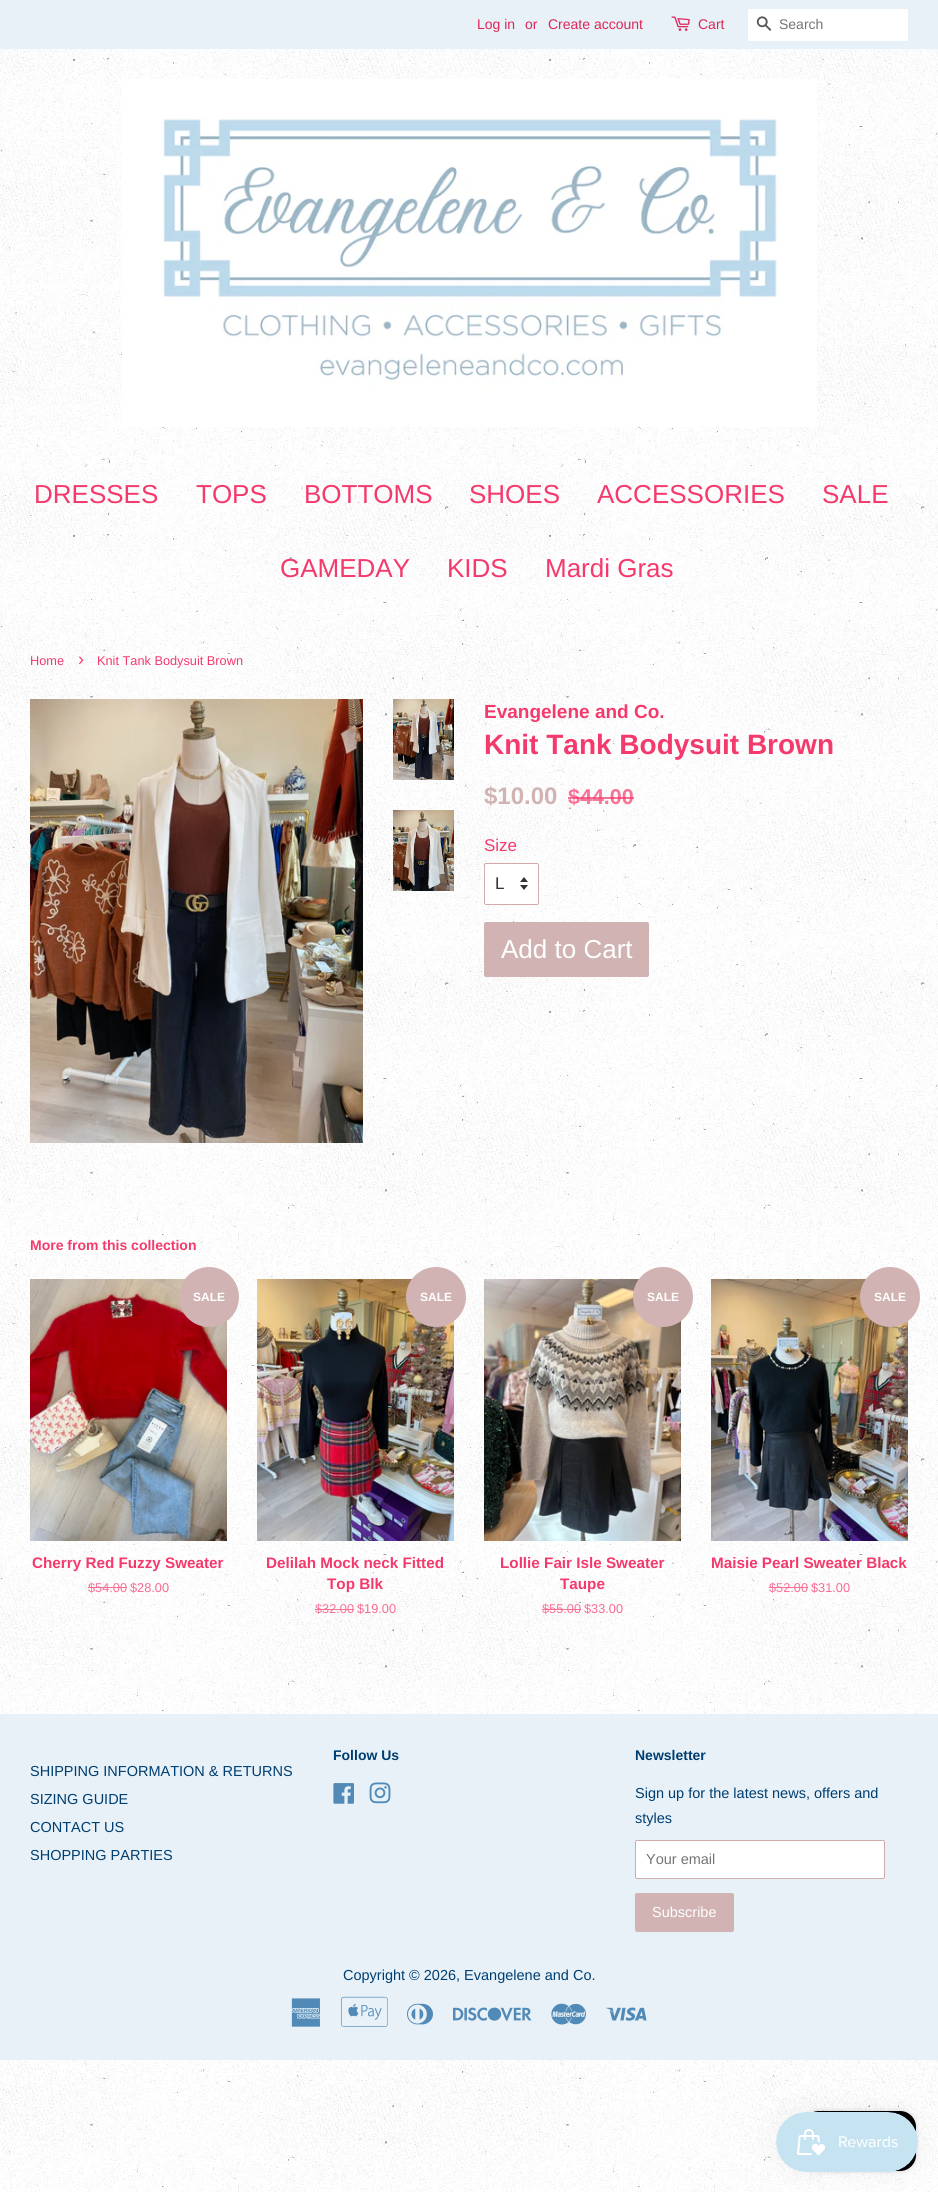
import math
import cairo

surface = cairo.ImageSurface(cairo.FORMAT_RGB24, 938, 2192)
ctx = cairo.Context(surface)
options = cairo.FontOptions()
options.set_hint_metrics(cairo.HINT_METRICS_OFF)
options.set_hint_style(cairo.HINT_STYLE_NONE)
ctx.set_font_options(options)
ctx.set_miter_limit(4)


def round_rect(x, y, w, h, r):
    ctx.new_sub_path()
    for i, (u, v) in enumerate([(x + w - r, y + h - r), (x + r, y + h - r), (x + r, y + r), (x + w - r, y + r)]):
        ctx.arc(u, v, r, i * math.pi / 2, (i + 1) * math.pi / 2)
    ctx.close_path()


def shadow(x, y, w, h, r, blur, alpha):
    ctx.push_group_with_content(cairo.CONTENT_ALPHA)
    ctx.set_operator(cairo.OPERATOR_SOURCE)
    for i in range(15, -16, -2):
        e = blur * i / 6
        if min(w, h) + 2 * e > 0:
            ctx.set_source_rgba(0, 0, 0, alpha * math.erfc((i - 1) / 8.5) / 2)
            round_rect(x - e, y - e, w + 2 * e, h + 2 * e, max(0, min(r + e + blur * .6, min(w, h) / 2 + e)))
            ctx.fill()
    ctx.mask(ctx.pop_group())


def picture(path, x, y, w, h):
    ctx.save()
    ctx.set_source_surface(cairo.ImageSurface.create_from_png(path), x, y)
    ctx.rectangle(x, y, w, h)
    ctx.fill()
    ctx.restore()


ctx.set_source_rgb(1, 1, 1)
ctx.paint()
picture("img1.png", 0, 2060, 938, 132)
picture("img2.png", 0, 49, 938, 1665)
ctx.set_source_rgb(0.906, 0.945, 0.965)
ctx.rectangle(0, 0, 938, 49)
ctx.fill()
ctx.select_font_face("Liberation Sans")
ctx.set_font_size(14)
ctx.set_source_rgb(0.863, 0.149, 0.341)
ctx.move_to(477, 29)
ctx.show_text("Log in")
ctx.move_to(525, 29)
ctx.show_text("or")
ctx.move_to(548, 29)
ctx.show_text("Create account")
picture("img3.png", 671, 16, 19, 15)
ctx.move_to(698, 29)
ctx.show_text("Cart")
ctx.set_source_rgb(1, 1, 1)
round_rect(748, 9, 160, 32, 2)
ctx.fill()
picture("img4.png", 756, 16, 16, 15)
ctx.set_source_rgb(0.459, 0.459, 0.459)
ctx.move_to(779, 29)
ctx.show_text("Search")
picture("img5.png", 122, 79, 695, 348)
ctx.set_font_size(26)
ctx.set_source_rgb(0.957, 0.227, 0.424)
ctx.move_to(34, 503)
ctx.show_text("DRESSES")
ctx.move_to(196, 503)
ctx.show_text("TOPS")
ctx.move_to(304, 503)
ctx.show_text("BOTTOMS")
ctx.move_to(469, 503)
ctx.show_text("SHOES")
ctx.move_to(597, 503)
ctx.show_text("ACCESSORIES")
ctx.move_to(822, 503)
ctx.show_text("SALE")
ctx.move_to(280, 577)
ctx.show_text("GAMEDAY")
ctx.move_to(447, 577)
ctx.show_text("KIDS")
ctx.move_to(545, 577)
ctx.show_text("Mardi Gras")
ctx.set_font_size(12.75)
ctx.move_to(30, 665)
ctx.show_text("Home")
ctx.set_font_size(18)
ctx.move_to(78, 665)
ctx.show_text("›")
ctx.set_font_size(12.75)
ctx.move_to(97, 665)
ctx.show_text("Knit Tank Bodysuit Brown")
picture("img6.png", 30, 699, 333, 444)
picture("img7.png", 393, 699, 61, 81)
picture("img8.png", 393, 810, 61, 81)
ctx.select_font_face("Liberation Sans", cairo.FONT_SLANT_NORMAL, cairo.FONT_WEIGHT_BOLD)
ctx.set_font_size(19)
ctx.move_to(484, 718)
ctx.show_text("Evangelene and Co.")
ctx.set_font_size(28)
ctx.move_to(484, 754)
ctx.show_text("Knit Tank Bodysuit Brown")
ctx.set_font_size(24)
ctx.set_source_rgb(0.82, 0.702, 0.702)
ctx.move_to(484, 804)
ctx.show_text("$10.00")
ctx.set_font_size(21.5)
ctx.set_source_rgb(0.969, 0.455, 0.592)
ctx.move_to(568, 804)
ctx.show_text("$44.00")
ctx.set_source_rgba(0.957, 0.227, 0.424, 0.7)
ctx.rectangle(568, 797, 66, 2)
ctx.fill()
ctx.select_font_face("Liberation Sans")
ctx.set_font_size(17)
ctx.set_source_rgb(0.957, 0.227, 0.424)
ctx.move_to(484, 851)
ctx.show_text("Size")
ctx.set_source_rgb(1, 1, 1)
round_rect(484, 863, 55, 42, 2)
ctx.fill()
picture("img9.png", 520, 877, 8, 13)
round_rect(484.5, 863.5, 54, 41, 1.5)
ctx.set_source_rgb(0.82, 0.671, 0.671)
ctx.set_line_width(1)
ctx.stroke()
ctx.set_source_rgb(0.2, 0.2, 0.2)
ctx.move_to(495, 889)
ctx.show_text("L")
ctx.set_source_rgb(0.82, 0.702, 0.702)
round_rect(484, 922, 165, 55, 2)
ctx.fill()
ctx.set_font_size(26)
ctx.set_source_rgb(1, 1, 1)
ctx.move_to(501, 958)
ctx.show_text("Add to Cart")
ctx.select_font_face("Liberation Sans", cairo.FONT_SLANT_NORMAL, cairo.FONT_WEIGHT_BOLD)
ctx.set_font_size(14)
ctx.set_source_rgb(0.957, 0.227, 0.424)
ctx.move_to(30, 1250)
ctx.show_text("More from this collection")
picture("img10.png", 30, 1279, 197, 262)
ctx.set_source_rgb(0.82, 0.702, 0.702)
ctx.arc(209, 1297, 30, 0, 2 * math.pi)
ctx.fill()
ctx.set_font_size(12)
ctx.set_source_rgb(1, 1, 1)
ctx.move_to(193, 1301)
ctx.show_text("SALE")
ctx.set_font_size(15.25)
ctx.set_source_rgb(0.957, 0.227, 0.424)
ctx.move_to(32, 1568)
ctx.show_text("Cherry Red Fuzzy Sweater")
ctx.select_font_face("Liberation Sans")
ctx.set_font_size(12.75)
ctx.set_source_rgb(0.969, 0.455, 0.592)
ctx.move_to(88, 1592)
ctx.show_text("$54.00")
ctx.set_source_rgba(0.969, 0.416, 0.565, 0.95)
ctx.rectangle(88, 1587, 39, 1)
ctx.fill()
ctx.set_source_rgb(0.969, 0.416, 0.565)
ctx.move_to(130, 1592)
ctx.show_text("$28.00")
picture("img11.png", 257, 1279, 197, 262)
ctx.set_source_rgb(0.82, 0.702, 0.702)
ctx.arc(436, 1297, 30, 0, 2 * math.pi)
ctx.fill()
ctx.select_font_face("Liberation Sans", cairo.FONT_SLANT_NORMAL, cairo.FONT_WEIGHT_BOLD)
ctx.set_font_size(12)
ctx.set_source_rgb(1, 1, 1)
ctx.move_to(420, 1301)
ctx.show_text("SALE")
ctx.set_font_size(15.25)
ctx.set_source_rgb(0.957, 0.227, 0.424)
ctx.move_to(266, 1568)
ctx.show_text("Delilah Mock neck Fitted")
ctx.move_to(327, 1589)
ctx.show_text("Top Blk")
ctx.select_font_face("Liberation Sans")
ctx.set_font_size(12.75)
ctx.set_source_rgb(0.969, 0.455, 0.592)
ctx.move_to(315, 1613)
ctx.show_text("$32.00")
ctx.set_source_rgba(0.969, 0.416, 0.565, 0.95)
ctx.rectangle(315, 1609, 39, 1)
ctx.fill()
ctx.set_source_rgb(0.969, 0.416, 0.565)
ctx.move_to(357, 1613)
ctx.show_text("$19.00")
picture("img12.png", 484, 1279, 197, 262)
ctx.set_source_rgb(0.82, 0.702, 0.702)
ctx.arc(663, 1297, 30, 0, 2 * math.pi)
ctx.fill()
ctx.select_font_face("Liberation Sans", cairo.FONT_SLANT_NORMAL, cairo.FONT_WEIGHT_BOLD)
ctx.set_font_size(12)
ctx.set_source_rgb(1, 1, 1)
ctx.move_to(647, 1301)
ctx.show_text("SALE")
ctx.set_font_size(15.25)
ctx.set_source_rgb(0.957, 0.227, 0.424)
ctx.move_to(500, 1568)
ctx.show_text("Lollie Fair Isle Sweater")
ctx.move_to(560, 1589)
ctx.show_text("Taupe")
ctx.select_font_face("Liberation Sans")
ctx.set_font_size(12.75)
ctx.set_source_rgb(0.969, 0.455, 0.592)
ctx.move_to(542, 1613)
ctx.show_text("$55.00")
ctx.set_source_rgba(0.969, 0.416, 0.565, 0.95)
ctx.rectangle(542, 1609, 39, 1)
ctx.fill()
ctx.set_source_rgb(0.969, 0.416, 0.565)
ctx.move_to(584, 1613)
ctx.show_text("$33.00")
picture("img13.png", 711, 1279, 197, 262)
ctx.set_source_rgb(0.82, 0.702, 0.702)
ctx.arc(890, 1297, 30, 0, 2 * math.pi)
ctx.fill()
ctx.select_font_face("Liberation Sans", cairo.FONT_SLANT_NORMAL, cairo.FONT_WEIGHT_BOLD)
ctx.set_font_size(12)
ctx.set_source_rgb(1, 1, 1)
ctx.move_to(874, 1301)
ctx.show_text("SALE")
ctx.set_font_size(15.25)
ctx.set_source_rgb(0.957, 0.227, 0.424)
ctx.move_to(711, 1568)
ctx.show_text("Maisie Pearl Sweater Black")
ctx.select_font_face("Liberation Sans")
ctx.set_font_size(12.75)
ctx.set_source_rgb(0.969, 0.455, 0.592)
ctx.move_to(769, 1592)
ctx.show_text("$52.00")
ctx.set_source_rgba(0.969, 0.416, 0.565, 0.95)
ctx.rectangle(769, 1587, 39, 1)
ctx.fill()
ctx.set_source_rgb(0.969, 0.416, 0.565)
ctx.move_to(811, 1592)
ctx.show_text("$31.00")
ctx.set_source_rgb(0.906, 0.945, 0.965)
ctx.rectangle(0, 1714, 938, 346)
ctx.fill()
ctx.set_font_size(14.5)
ctx.set_source_rgb(0, 0.243, 0.443)
ctx.move_to(30, 1776)
ctx.show_text("SHIPPING INFORMATION & RETURNS")
ctx.move_to(30, 1804)
ctx.show_text("SIZING GUIDE")
ctx.move_to(30, 1832)
ctx.show_text("CONTACT US")
ctx.move_to(30, 1860)
ctx.show_text("SHOPPING PARTIES")
ctx.select_font_face("Liberation Sans", cairo.FONT_SLANT_NORMAL, cairo.FONT_WEIGHT_BOLD)
ctx.set_font_size(14)
ctx.move_to(333, 1760)
ctx.show_text("Follow Us")
picture("img14.png", 333, 1783, 21, 21)
picture("img15.png", 369, 1782, 22, 22)
ctx.move_to(635, 1760)
ctx.show_text("Newsletter")
ctx.select_font_face("Liberation Sans")
ctx.set_font_size(14.5)
ctx.move_to(635, 1798)
ctx.show_text("Sign up for the latest news, offers and")
ctx.move_to(635, 1823)
ctx.show_text("styles")
ctx.set_source_rgb(1, 1, 1)
round_rect(635.5, 1840.5, 249, 38, 1.5)
ctx.fill_preserve()
ctx.set_source_rgb(0.82, 0.671, 0.671)
ctx.stroke()
ctx.set_source_rgb(0.459, 0.459, 0.459)
ctx.move_to(646, 1864)
ctx.show_text("Your email")
ctx.set_source_rgb(0.82, 0.702, 0.702)
round_rect(635, 1893, 99, 39, 2)
ctx.fill()
ctx.set_source_rgb(1, 1, 1)
ctx.move_to(652, 1917)
ctx.show_text("Subscribe")
ctx.set_source_rgb(0, 0.243, 0.443)
ctx.move_to(343, 1980)
ctx.show_text("Copyright © 2026, Evangelene and Co.")
picture("img16.png", 291, 1998, 30, 29)
picture("img17.png", 341, 1996, 47, 31)
picture("img18.png", 407, 2003, 26, 22)
picture("img19.png", 453, 2007, 79, 14)
picture("img20.png", 551, 2003, 35, 22)
picture("img21.png", 606, 2007, 41, 14)
ctx.set_source_rgb(0, 0, 0)
shadow(803, 2111, 113, 60, 16, 2.5, 0.15)
ctx.set_source_rgb(0, 0, 0)
round_rect(803, 2111, 113, 60, 16)
ctx.fill()
ctx.set_source_rgb(0, 0, 0)
shadow(776, 2112, 142, 60, 30, 12.5, 0.05)
picture("img22.png", 776, 2112, 142, 60)
surface.write_to_png("page.png")
